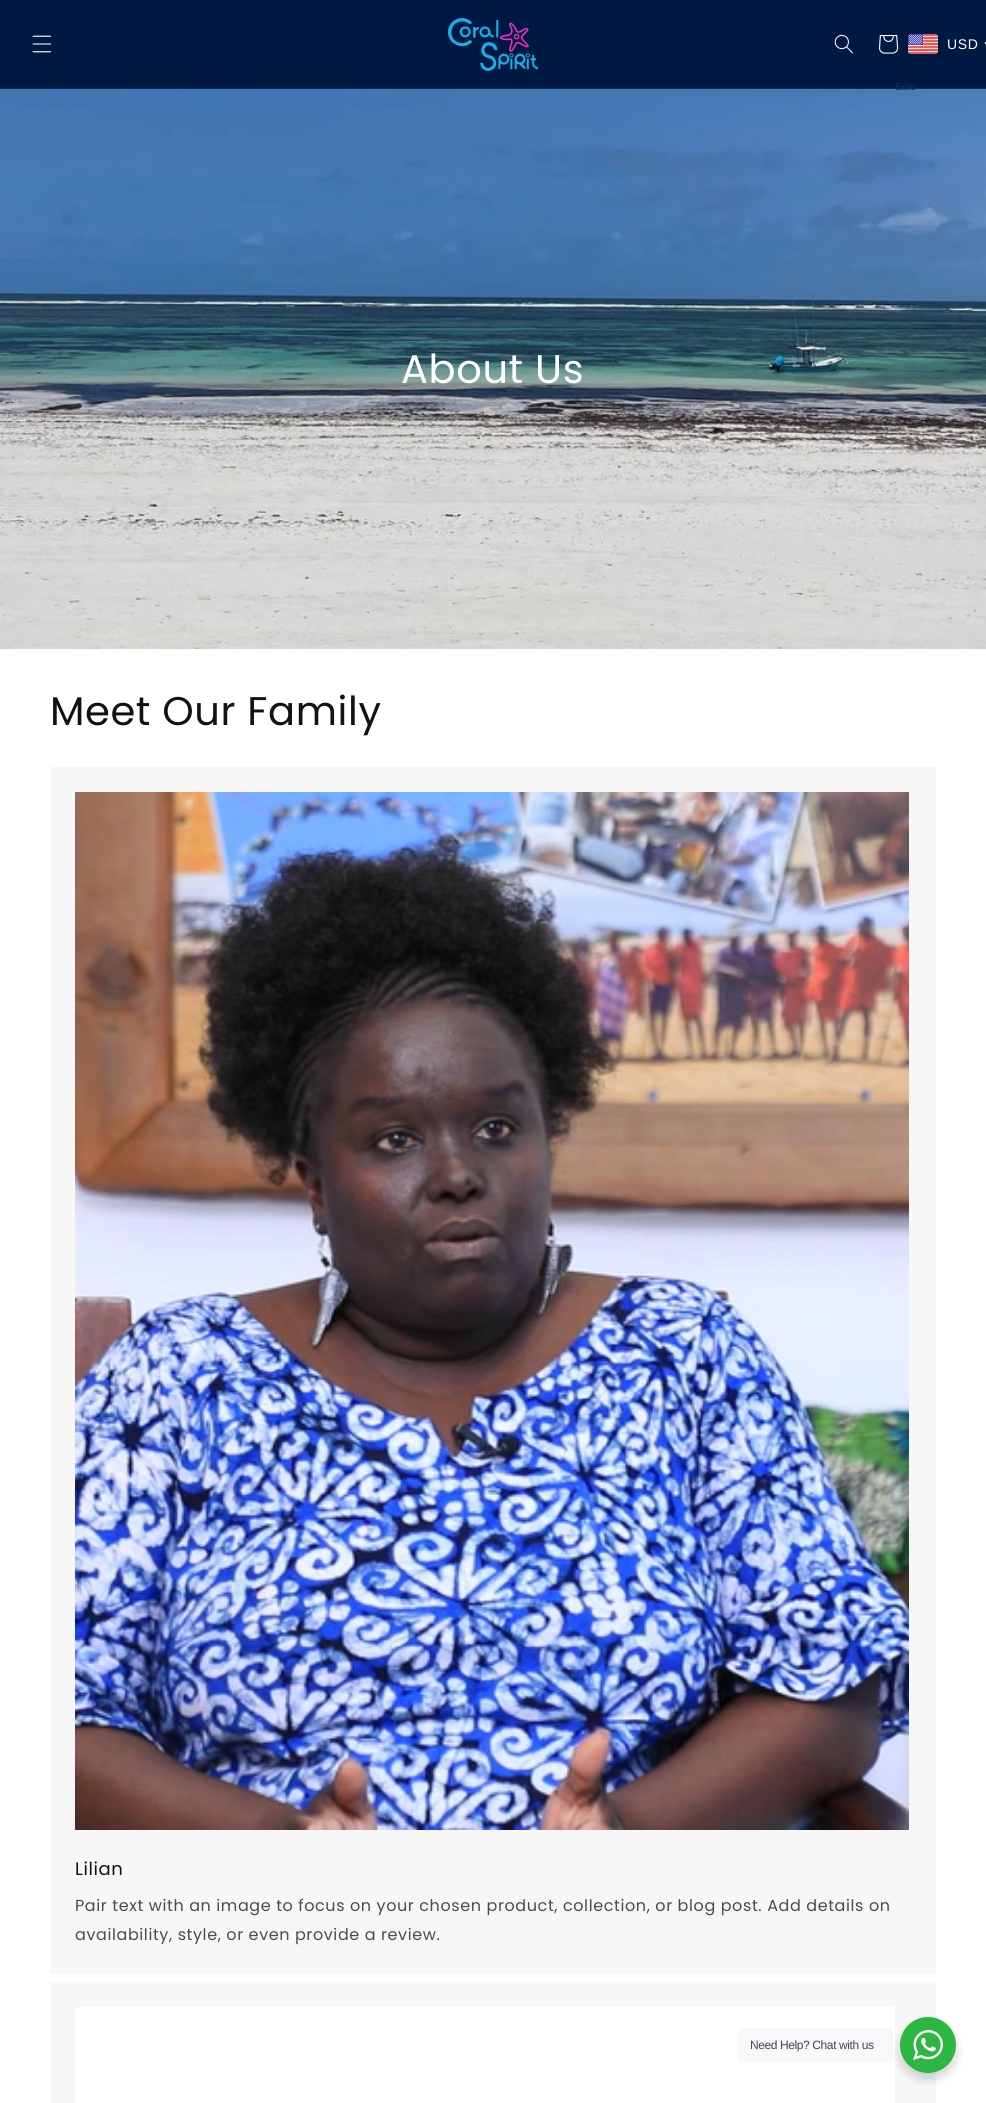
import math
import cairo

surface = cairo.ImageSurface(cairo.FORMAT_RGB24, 986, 2103)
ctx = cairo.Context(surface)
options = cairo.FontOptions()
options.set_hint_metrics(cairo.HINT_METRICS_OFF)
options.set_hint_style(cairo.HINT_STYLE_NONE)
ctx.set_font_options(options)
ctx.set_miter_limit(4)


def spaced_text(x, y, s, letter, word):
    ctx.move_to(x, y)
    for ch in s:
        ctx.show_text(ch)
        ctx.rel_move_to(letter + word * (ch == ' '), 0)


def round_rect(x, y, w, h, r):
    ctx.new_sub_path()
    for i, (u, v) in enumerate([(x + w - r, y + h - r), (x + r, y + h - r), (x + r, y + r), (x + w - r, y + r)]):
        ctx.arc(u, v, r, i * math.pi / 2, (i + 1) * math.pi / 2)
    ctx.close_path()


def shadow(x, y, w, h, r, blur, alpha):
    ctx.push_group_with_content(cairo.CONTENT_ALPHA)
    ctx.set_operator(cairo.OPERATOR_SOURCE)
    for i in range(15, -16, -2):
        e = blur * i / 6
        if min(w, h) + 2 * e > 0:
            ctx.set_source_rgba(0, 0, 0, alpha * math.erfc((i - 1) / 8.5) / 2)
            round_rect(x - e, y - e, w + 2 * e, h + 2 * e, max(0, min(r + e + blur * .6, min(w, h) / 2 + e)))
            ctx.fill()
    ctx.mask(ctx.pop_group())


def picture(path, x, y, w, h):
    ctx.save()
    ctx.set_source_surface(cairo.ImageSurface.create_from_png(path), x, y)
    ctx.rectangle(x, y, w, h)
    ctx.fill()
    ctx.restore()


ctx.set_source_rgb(1, 1, 1)
ctx.paint()
ctx.set_source_rgb(0, 0.098, 0.259)
ctx.rectangle(0, 0, 986, 88)
ctx.fill()
ctx.set_source_rgb(0.078, 0.169, 0.318)
ctx.rectangle(0, 88, 986, 1)
ctx.fill()
picture("img1.png", 32, 35, 20, 18)
picture("img2.png", 448, 18, 90, 53)
picture("img3.png", 834, 34, 19, 20)
picture("img4.png", 879, 35, 20, 19)
picture("img5.png", 908, 34, 30, 20)
ctx.select_font_face("Liberation Sans")
ctx.set_font_size(14)
ctx.set_source_rgb(1, 1, 1)
spaced_text(947, 49, "USD", 0.6, 0)
ctx.new_path()
ctx.move_to(986, 41.5)
ctx.line_to(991, 46.5)
ctx.line_to(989.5, 48)
ctx.line_to(984.5, 43)
ctx.close_path()
ctx.fill()
picture("img6.png", 0, 89, 986, 560)
ctx.set_font_size(10)
ctx.set_source_rgb(0.075, 0.192, 0.369)
ctx.move_to(895, 90)
ctx.show_text("Euro")
ctx.select_font_face("Poppins")
ctx.set_font_size(40)
ctx.set_source_rgb(1, 1, 1)
spaced_text(401, 383, "About Us", 0.6, 0)
ctx.set_source_rgb(0.071, 0.071, 0.071)
spaced_text(50, 725, "Meet Our Family", 0.6, 0)
ctx.set_source_rgb(0.965, 0.965, 0.965)
ctx.rectangle(50, 767, 886, 1207)
ctx.fill()
picture("img7.png", 75, 792, 834, 1038)
ctx.set_font_size(18)
ctx.set_source_rgb(0.071, 0.071, 0.071)
spaced_text(75, 1875, "Lilian", 0.6, 0)
ctx.set_font_size(16)
ctx.set_source_rgb(0.294, 0.294, 0.294)
spaced_text(75, 1911, "Pair text with an image to focus on your chosen product, collection, or blog post. Add details on", 0.6, 0)
spaced_text(75, 1940, "availability, style, or even provide a review.", 0.6, 0)
ctx.set_source_rgb(0.965, 0.965, 0.965)
ctx.rectangle(50, 1982, 886, 121)
ctx.fill()
ctx.set_source_rgb(1, 1, 1)
ctx.rectangle(75, 2007, 820, 96)
ctx.fill()
ctx.set_source_rgb(0, 0, 0)
shadow(898, 2021, 60, 60, 30, 4, 0.14)
ctx.set_source_rgb(0.961, 0.969, 0.976)
round_rect(738, 2028, 155, 34, 4)
ctx.fill()
ctx.select_font_face("Liberation Sans")
ctx.set_font_size(12)
ctx.set_source_rgb(0.263, 0.278, 0.306)
spaced_text(750, 2049, "Need Help? Chat with us", -0.4, 0)
ctx.set_source_rgb(0.176, 0.718, 0.259)
ctx.new_path()
ctx.arc(928, 2045, 28, 0, 2 * math.pi)
ctx.fill()
picture("img8.png", 913, 2030, 30, 30)
surface.write_to_png("page.png")
